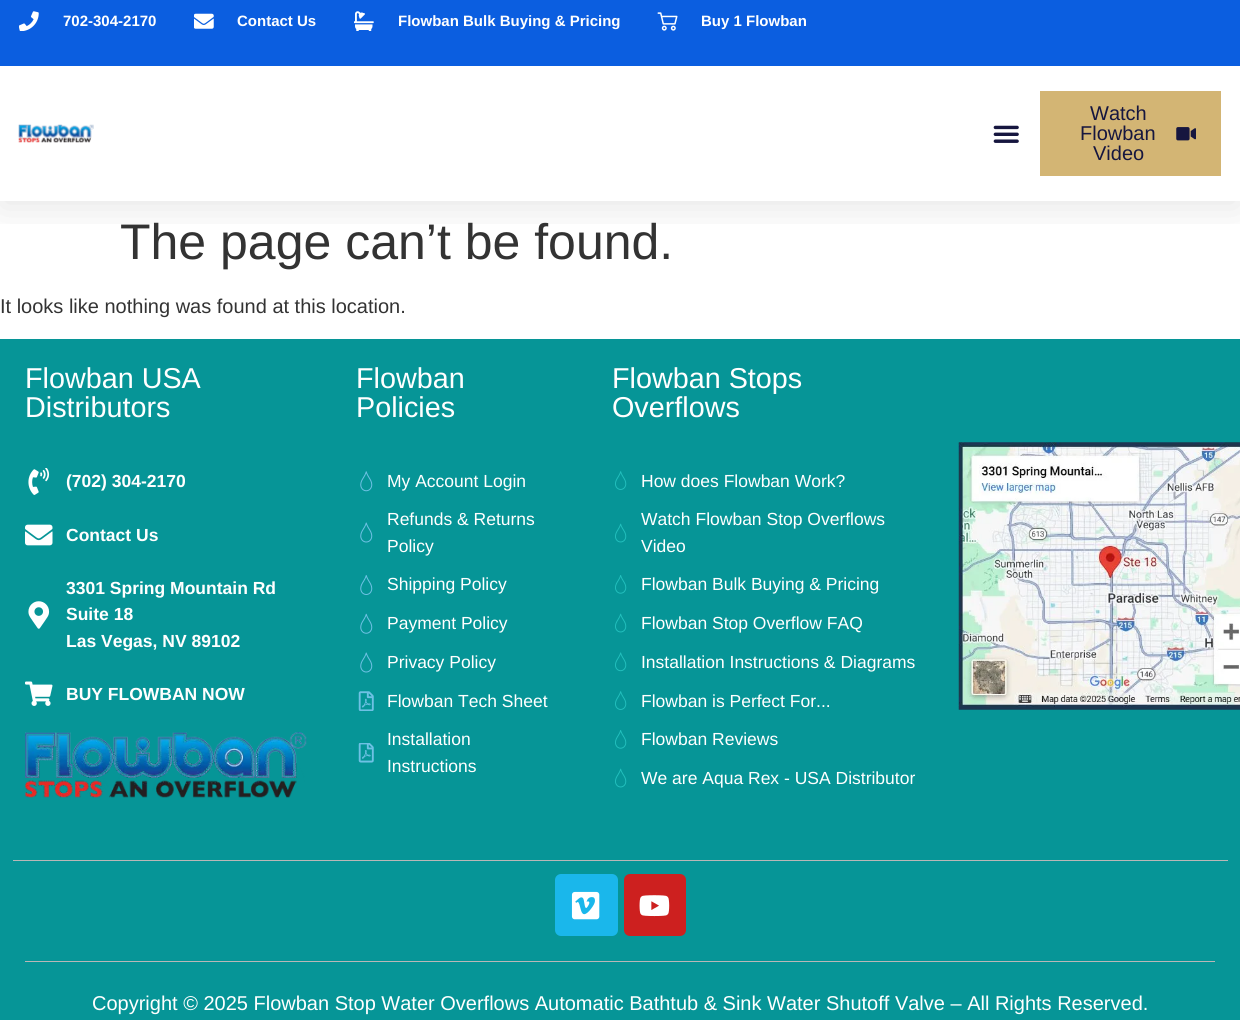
import math
import cairo

surface = cairo.ImageSurface(cairo.FORMAT_RGB24, 1240, 1020)
ctx = cairo.Context(surface)
options = cairo.FontOptions()
options.set_hint_metrics(cairo.HINT_METRICS_OFF)
options.set_hint_style(cairo.HINT_STYLE_NONE)
ctx.set_font_options(options)
ctx.set_miter_limit(4)


def round_rect(x, y, w, h, r):
    ctx.new_sub_path()
    for i, (u, v) in enumerate([(x + w - r, y + h - r), (x + r, y + h - r), (x + r, y + r), (x + w - r, y + r)]):
        ctx.arc(u, v, r, i * math.pi / 2, (i + 1) * math.pi / 2)
    ctx.close_path()


def shadow(x, y, w, h, r, blur, alpha):
    ctx.push_group_with_content(cairo.CONTENT_ALPHA)
    ctx.set_operator(cairo.OPERATOR_SOURCE)
    for i in range(15, -16, -2):
        e = blur * i / 6
        if min(w, h) + 2 * e > 0:
            ctx.set_source_rgba(0, 0, 0, alpha * math.erfc((i - 1) / 8.5) / 2)
            round_rect(x - e, y - e, w + 2 * e, h + 2 * e, max(0, min(r + e + blur * .6, min(w, h) / 2 + e)))
            ctx.fill()
    ctx.mask(ctx.pop_group())


def picture(path, x, y, w, h):
    ctx.save()
    ctx.set_source_surface(cairo.ImageSurface.create_from_png(path), x, y)
    ctx.rectangle(x, y, w, h)
    ctx.fill()
    ctx.restore()


ctx.set_source_rgb(1, 1, 1)
ctx.paint()
ctx.save()
ctx.rectangle(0, 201, 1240, 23)
ctx.clip()
ctx.set_source_rgb(0, 0, 0)
shadow(0, -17, 1240, 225, 0, 19, 0.1)
ctx.restore()
ctx.set_source_rgb(0.043, 0.369, 0.878)
ctx.rectangle(0, 0, 1240, 66)
ctx.fill()
picture("img1.png", 19, 11, 20, 20)
ctx.select_font_face("Liberation Sans", cairo.FONT_SLANT_NORMAL, cairo.FONT_WEIGHT_BOLD)
ctx.set_font_size(15)
ctx.set_source_rgb(1, 1, 1)
ctx.move_to(63, 26)
ctx.show_text("702-304-2170")
picture("img2.png", 194, 13, 20, 16)
ctx.move_to(237, 26)
ctx.show_text("Contact Us")
picture("img3.png", 354, 11, 20, 20)
ctx.move_to(398, 26)
ctx.show_text("Flowban Bulk Buying & Pricing")
picture("img4.png", 657, 12, 21, 19)
ctx.move_to(701, 26)
ctx.show_text("Buy 1 Flowban")
picture("img5.png", 18, 124, 76, 19)
picture("img6.png", 993, 125, 26, 18)
ctx.set_source_rgb(0.827, 0.71, 0.455)
ctx.rectangle(1040, 91, 181, 85)
ctx.fill()
ctx.select_font_face("Liberation Sans")
ctx.set_font_size(20)
ctx.set_source_rgb(0.086, 0.086, 0.247)
ctx.move_to(1090, 120)
ctx.show_text("Watch")
ctx.move_to(1080, 140)
ctx.show_text("Flowban")
ctx.move_to(1093, 160)
ctx.show_text("Video")
picture("img7.png", 1176, 127, 20, 14)
ctx.set_font_size(50)
ctx.set_source_rgb(0.2, 0.2, 0.2)
ctx.move_to(120, 259)
ctx.show_text("The page can’t be found.")
ctx.set_font_size(20)
ctx.move_to(0, 313)
ctx.show_text("It looks like nothing was found at this location.")
ctx.set_source_rgb(0.024, 0.584, 0.592)
ctx.rectangle(0, 339, 1240, 681)
ctx.fill()
ctx.set_font_size(28.75)
ctx.set_source_rgb(1, 1, 1)
ctx.move_to(25, 388)
ctx.show_text("Flowban USA")
ctx.move_to(25, 417)
ctx.show_text("Distributors")
picture("img8.png", 28, 468, 22, 27)
ctx.select_font_face("Liberation Sans", cairo.FONT_SLANT_NORMAL, cairo.FONT_WEIGHT_BOLD)
ctx.set_font_size(17.5)
ctx.move_to(66, 487)
ctx.show_text("(702) 304-2170")
picture("img9.png", 25, 524, 28, 22)
ctx.move_to(66, 541)
ctx.show_text("Contact Us")
picture("img10.png", 28, 601, 22, 28)
ctx.move_to(66, 594)
ctx.show_text("3301 Spring Mountain Rd")
ctx.move_to(66, 620)
ctx.show_text("Suite 18")
ctx.move_to(66, 647)
ctx.show_text("Las Vegas, NV 89102")
picture("img11.png", 25, 681, 28, 25)
ctx.move_to(66, 700)
ctx.show_text("BUY FLOWBAN NOW")
picture("img12.png", 25, 732, 282, 66)
ctx.select_font_face("Liberation Sans")
ctx.set_font_size(28.75)
ctx.move_to(356, 388)
ctx.show_text("Flowban")
ctx.move_to(356, 417)
ctx.show_text("Policies")
picture("img13.png", 360, 471, 13, 21)
ctx.set_font_size(17.5)
ctx.move_to(387, 487)
ctx.show_text("My Account Login")
picture("img14.png", 360, 522, 13, 21)
ctx.move_to(387, 525)
ctx.show_text("Refunds & Returns")
ctx.move_to(387, 552)
ctx.show_text("Policy")
picture("img15.png", 360, 575, 13, 20)
ctx.move_to(387, 590)
ctx.show_text("Shipping Policy")
picture("img16.png", 360, 613, 13, 21)
ctx.move_to(387, 629)
ctx.show_text("Payment Policy")
picture("img14.png", 360, 652, 13, 21)
ctx.move_to(387, 668)
ctx.show_text("Privacy Policy")
picture("img17.png", 358, 691, 16, 20)
ctx.move_to(387, 707)
ctx.show_text("Flowban Tech Sheet")
picture("img18.png", 358, 743, 16, 20)
ctx.move_to(387, 745)
ctx.show_text("Installation")
ctx.move_to(387, 772)
ctx.show_text("Instructions")
ctx.set_font_size(28.75)
ctx.move_to(612, 388)
ctx.show_text("Flowban Stops")
ctx.move_to(612, 417)
ctx.show_text("Overflows")
picture("img19.png", 615, 471, 12, 19)
ctx.set_font_size(17.5)
ctx.move_to(641, 487)
ctx.show_text("How does Flowban Work?")
picture("img20.png", 615, 523, 12, 20)
ctx.move_to(641, 525)
ctx.show_text("Watch Flowban Stop Overflows")
ctx.move_to(641, 552)
ctx.show_text("Video")
picture("img21.png", 615, 575, 12, 19)
ctx.move_to(641, 590)
ctx.show_text("Flowban Bulk Buying & Pricing")
picture("img20.png", 615, 613, 12, 20)
ctx.move_to(641, 629)
ctx.show_text("Flowban Stop Overflow FAQ")
picture("img22.png", 615, 652, 12, 20)
ctx.move_to(641, 668)
ctx.show_text("Installation Instructions & Diagrams")
picture("img19.png", 615, 691, 12, 19)
ctx.move_to(641, 707)
ctx.show_text("Flowban is Perfect For...")
picture("img21.png", 615, 730, 12, 19)
ctx.move_to(641, 745)
ctx.show_text("Flowban Reviews")
picture("img20.png", 615, 768, 12, 20)
ctx.move_to(641, 784)
ctx.show_text("We are Aqua Rex - USA Distributor")
picture("img23.png", 958, 442, 282, 268)
ctx.set_source_rgb(0.725, 0.718, 0.718)
ctx.rectangle(13, 860, 1215, 1)
ctx.fill()
ctx.set_source_rgb(0.102, 0.718, 0.918)
round_rect(555, 874, 63, 62, 6)
ctx.fill()
picture("img24.png", 571, 891, 29, 29)
ctx.set_source_rgb(0.804, 0.125, 0.122)
round_rect(624, 874, 62, 62, 6)
ctx.fill()
picture("img25.png", 639, 895, 31, 22)
ctx.set_source_rgb(0.725, 0.718, 0.718)
ctx.rectangle(25, 961, 1190, 1)
ctx.fill()
ctx.set_font_size(20)
ctx.set_source_rgb(1, 1, 1)
ctx.move_to(92, 1010)
ctx.show_text("Copyright © 2025 Flowban Stop Water Overflows Automatic Bathtub & Sink Water Shutoff Valve – All Rights Reserved.")
surface.write_to_png("page.png")
